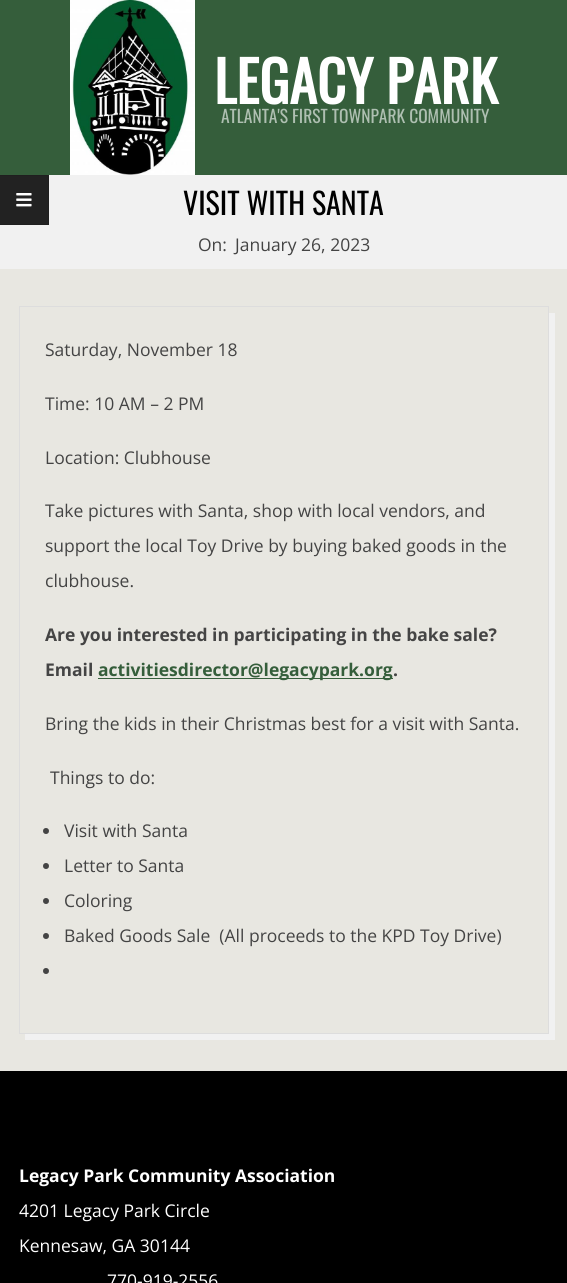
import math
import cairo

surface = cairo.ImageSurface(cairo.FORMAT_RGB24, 567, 1283)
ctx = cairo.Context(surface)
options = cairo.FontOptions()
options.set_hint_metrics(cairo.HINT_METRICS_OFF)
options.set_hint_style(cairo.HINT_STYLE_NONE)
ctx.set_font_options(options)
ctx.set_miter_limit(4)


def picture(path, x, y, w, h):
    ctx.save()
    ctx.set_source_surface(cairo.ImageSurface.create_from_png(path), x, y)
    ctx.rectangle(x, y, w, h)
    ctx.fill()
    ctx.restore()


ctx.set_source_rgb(0.91, 0.906, 0.882)
ctx.paint()
ctx.set_source_rgb(0.208, 0.369, 0.231)
ctx.rectangle(0, 0, 567, 175)
ctx.fill()
picture("img1.png", 70, 0, 125, 175)
ctx.select_font_face("Oswald", cairo.FONT_SLANT_NORMAL, cairo.FONT_WEIGHT_BOLD)
ctx.set_font_size(56.25)
ctx.set_source_rgb(1, 1, 1)
ctx.move_to(214, 104)
ctx.show_text("LEGACY PARK")
ctx.select_font_face("Oswald")
ctx.set_font_size(17.5)
ctx.set_source_rgb(0.682, 0.749, 0.694)
ctx.move_to(221, 123)
ctx.show_text("ATLANTA'S FIRST TOWNPARK COMMUNITY")
ctx.set_source_rgb(0.945, 0.945, 0.945)
ctx.rectangle(0, 175, 567, 94)
ctx.fill()
ctx.set_source_rgb(0.133, 0.133, 0.133)
ctx.rectangle(0, 175, 49, 50)
ctx.fill()
ctx.set_source_rgb(0.122, 0.122, 0.122)
ctx.new_path()
ctx.move_to(0, 175)
ctx.line_to(49, 175)
ctx.line_to(48, 176)
ctx.line_to(0, 176)
ctx.close_path()
ctx.fill()
ctx.new_path()
ctx.move_to(49, 175)
ctx.line_to(49, 225)
ctx.line_to(48, 224)
ctx.line_to(48, 176)
ctx.close_path()
ctx.fill()
ctx.new_path()
ctx.move_to(49, 225)
ctx.line_to(0, 225)
ctx.line_to(0, 224)
ctx.line_to(48, 224)
ctx.close_path()
ctx.fill()
picture("img2.png", 16, 193, 16, 14)
ctx.set_font_size(30)
ctx.set_source_rgb(0, 0, 0)
ctx.move_to(183, 215)
ctx.show_text("VISIT WITH SANTA")
ctx.select_font_face("Open Sans")
ctx.set_font_size(17.5)
ctx.set_source_rgb(0.267, 0.267, 0.267)
ctx.move_to(198, 251)
ctx.show_text("On:")
ctx.move_to(235, 251)
ctx.show_text("January 26, 2023")
ctx.set_source_rgb(0.945, 0.945, 0.945)
ctx.new_path()
ctx.move_to(25, 1034)
ctx.line_to(25, 1040)
ctx.line_to(555, 1040)
ctx.line_to(555, 313)
ctx.line_to(549, 313)
ctx.line_to(549, 1034)
ctx.close_path()
ctx.fill()
ctx.rectangle(19.5, 306.5, 529, 727)
ctx.set_source_rgb(0.867, 0.867, 0.867)
ctx.set_line_width(1)
ctx.stroke()
ctx.set_source_rgb(0.267, 0.267, 0.267)
ctx.move_to(45, 356)
ctx.show_text("Saturday, November 18")
ctx.move_to(45, 410)
ctx.show_text("Time: 10 AM – 2 PM")
ctx.move_to(45, 464)
ctx.show_text("Location: Clubhouse")
ctx.move_to(45, 517)
ctx.show_text("Take pictures with Santa, shop with local vendors, and")
ctx.move_to(45, 552)
ctx.show_text("support the local Toy Drive by buying baked goods in the")
ctx.move_to(45, 587)
ctx.show_text("clubhouse.")
ctx.select_font_face("Open Sans", cairo.FONT_SLANT_NORMAL, cairo.FONT_WEIGHT_BOLD)
ctx.move_to(45, 641)
ctx.show_text("Are you interested in participating in the bake sale?")
ctx.move_to(45, 676)
ctx.show_text("Email")
ctx.set_source_rgb(0.208, 0.369, 0.231)
ctx.rectangle(98, 678, 295, 1)
ctx.fill()
ctx.move_to(98, 676)
ctx.show_text("activitiesdirector@legacypark.org")
ctx.set_source_rgb(0.267, 0.267, 0.267)
ctx.move_to(393, 676)
ctx.show_text(".")
ctx.select_font_face("Open Sans")
ctx.move_to(45, 730)
ctx.show_text("Bring the kids in their Christmas best for a visit with Santa.")
ctx.move_to(50, 784)
ctx.show_text("Things to do:")
ctx.new_path()
ctx.arc(46, 831, 3, 0, 2 * math.pi)
ctx.fill()
ctx.move_to(64, 837)
ctx.show_text("Visit with Santa")
ctx.new_path()
ctx.arc(46, 866, 3, 0, 2 * math.pi)
ctx.fill()
ctx.move_to(64, 872)
ctx.show_text("Letter to Santa")
ctx.new_path()
ctx.arc(46, 901, 3, 0, 2 * math.pi)
ctx.fill()
ctx.move_to(64, 907)
ctx.show_text("Coloring")
ctx.new_path()
ctx.arc(46, 936, 3, 0, 2 * math.pi)
ctx.fill()
ctx.move_to(64, 942)
ctx.show_text("Baked Goods Sale  (All proceeds to the KPD Toy Drive)")
ctx.new_path()
ctx.arc(46, 971, 3, 0, 2 * math.pi)
ctx.fill()
ctx.set_source_rgb(0, 0, 0)
ctx.rectangle(0, 1071, 567, 212)
ctx.fill()
ctx.select_font_face("Open Sans", cairo.FONT_SLANT_NORMAL, cairo.FONT_WEIGHT_BOLD)
ctx.set_source_rgb(1, 1, 1)
ctx.move_to(19, 1182)
ctx.show_text("Legacy Park Community Association")
ctx.select_font_face("Open Sans")
ctx.move_to(19, 1217)
ctx.show_text("4201 Legacy Park Circle")
ctx.move_to(19, 1252)
ctx.show_text("Kennesaw, GA 30144")
ctx.move_to(107, 1287)
ctx.show_text("770-919-2556")
surface.write_to_png("page.png")
